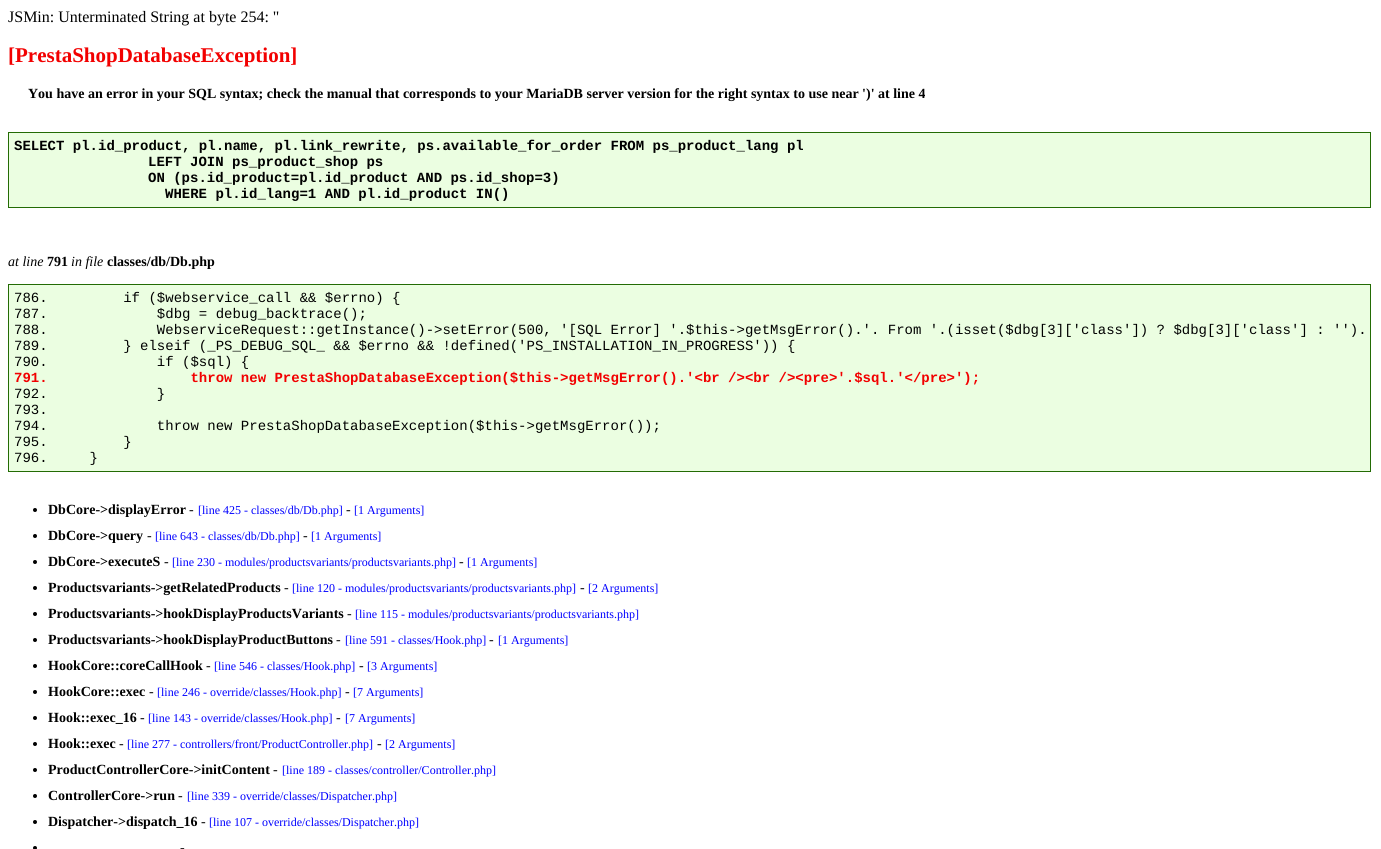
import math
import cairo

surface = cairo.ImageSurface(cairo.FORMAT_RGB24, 1381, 849)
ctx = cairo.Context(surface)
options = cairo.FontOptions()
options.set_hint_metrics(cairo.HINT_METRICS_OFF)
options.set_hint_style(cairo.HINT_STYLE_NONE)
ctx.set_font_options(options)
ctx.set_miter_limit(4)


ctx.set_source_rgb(1, 1, 1)
ctx.paint()
ctx.select_font_face("Liberation Serif")
ctx.set_font_size(16)
ctx.set_source_rgb(0, 0, 0)
ctx.move_to(8, 22)
ctx.show_text("JSMin: Unterminated String at byte 254: \"")
ctx.select_font_face("Liberation Serif", cairo.FONT_SLANT_NORMAL, cairo.FONT_WEIGHT_BOLD)
ctx.set_font_size(21)
ctx.set_source_rgb(0.949, 0, 0)
ctx.move_to(8, 62)
ctx.show_text("[PrestaShopDatabaseException]")
ctx.set_font_size(14)
ctx.set_source_rgb(0, 0, 0)
ctx.move_to(28, 98)
ctx.show_text("You have an error in your SQL syntax; check the manual that corresponds to your MariaDB server version for the right syntax to use near ')' at line 4")
ctx.set_source_rgb(0.918, 0.996, 0.882)
ctx.rectangle(8.5, 132.5, 1362, 75)
ctx.fill_preserve()
ctx.set_source_rgb(0.137, 0.42, 0.016)
ctx.set_line_width(1)
ctx.stroke()
ctx.select_font_face("Liberation Mono", cairo.FONT_SLANT_NORMAL, cairo.FONT_WEIGHT_BOLD)
ctx.set_source_rgb(0, 0, 0)
ctx.move_to(14, 150)
ctx.show_text("SELECT pl.id_product, pl.name, pl.link_rewrite, ps.available_for_order FROM ps_product_lang pl")
ctx.move_to(148, 166)
ctx.show_text("LEFT JOIN ps_product_shop ps")
ctx.move_to(148, 182)
ctx.show_text("ON (ps.id_product=pl.id_product AND ps.id_shop=3)")
ctx.move_to(165, 198)
ctx.show_text("WHERE pl.id_lang=1 AND pl.id_product IN()")
ctx.select_font_face("Liberation Serif", cairo.FONT_SLANT_ITALIC)
ctx.move_to(8, 266)
ctx.show_text("at line")
ctx.select_font_face("Liberation Serif", cairo.FONT_SLANT_NORMAL, cairo.FONT_WEIGHT_BOLD)
ctx.move_to(47, 266)
ctx.show_text("791")
ctx.select_font_face("Liberation Serif", cairo.FONT_SLANT_ITALIC)
ctx.move_to(71, 266)
ctx.show_text("in file")
ctx.select_font_face("Liberation Serif", cairo.FONT_SLANT_NORMAL, cairo.FONT_WEIGHT_BOLD)
ctx.move_to(107, 266)
ctx.show_text("classes/db/Db.php")
ctx.set_source_rgb(0.918, 0.996, 0.882)
ctx.rectangle(8.5, 284.5, 1362, 187)
ctx.fill_preserve()
ctx.set_source_rgb(0.137, 0.42, 0.016)
ctx.stroke()
ctx.select_font_face("Liberation Mono")
ctx.set_source_rgb(0, 0, 0)
ctx.move_to(14, 302)
ctx.show_text("786.         if ($webservice_call && $errno) {")
ctx.move_to(14, 318)
ctx.show_text("787.             $dbg = debug_backtrace();")
ctx.move_to(14, 334)
ctx.show_text("788.             WebserviceRequest::getInstance()->setError(500, '[SQL Error] '.$this->getMsgError().'. From '.(isset($dbg[3]['class']) ? $dbg[3]['class'] : '').")
ctx.move_to(14, 350)
ctx.show_text("789.         } elseif (_PS_DEBUG_SQL_ && $errno && !defined('PS_INSTALLATION_IN_PROGRESS')) {")
ctx.move_to(14, 366)
ctx.show_text("790.             if ($sql) {")
ctx.select_font_face("Liberation Mono", cairo.FONT_SLANT_NORMAL, cairo.FONT_WEIGHT_BOLD)
ctx.set_source_rgb(0.949, 0, 0)
ctx.move_to(14, 382)
ctx.show_text("791.                 throw new PrestaShopDatabaseException($this->getMsgError().'<br /><br /><pre>'.$sql.'</pre>');")
ctx.select_font_face("Liberation Mono")
ctx.set_source_rgb(0, 0, 0)
ctx.move_to(14, 398)
ctx.show_text("792.             }")
ctx.move_to(14, 414)
ctx.show_text("793.")
ctx.move_to(14, 430)
ctx.show_text("794.             throw new PrestaShopDatabaseException($this->getMsgError());")
ctx.move_to(14, 446)
ctx.show_text("795.         }")
ctx.move_to(14, 462)
ctx.show_text("796.     }")
ctx.new_path()
ctx.arc(35, 510, 2, 0, 2 * math.pi)
ctx.fill()
ctx.select_font_face("Liberation Serif", cairo.FONT_SLANT_NORMAL, cairo.FONT_WEIGHT_BOLD)
ctx.move_to(48, 514)
ctx.show_text("DbCore->displayError")
ctx.select_font_face("Liberation Serif")
ctx.move_to(189, 514)
ctx.show_text("-")
ctx.set_font_size(12)
ctx.set_source_rgb(0, 0, 1)
ctx.move_to(198, 514)
ctx.show_text("[line 425 - classes/db/Db.php]")
ctx.set_font_size(14)
ctx.set_source_rgb(0, 0, 0)
ctx.move_to(346, 514)
ctx.show_text("-")
ctx.set_font_size(12)
ctx.set_source_rgb(0, 0, 1)
ctx.move_to(354, 514)
ctx.show_text("[1 Arguments]")
ctx.set_source_rgb(0, 0, 0)
ctx.new_path()
ctx.arc(35, 536, 2, 0, 2 * math.pi)
ctx.fill()
ctx.select_font_face("Liberation Serif", cairo.FONT_SLANT_NORMAL, cairo.FONT_WEIGHT_BOLD)
ctx.set_font_size(14)
ctx.move_to(48, 540)
ctx.show_text("DbCore->query")
ctx.select_font_face("Liberation Serif")
ctx.move_to(147, 540)
ctx.show_text("-")
ctx.set_font_size(12)
ctx.set_source_rgb(0, 0, 1)
ctx.move_to(155, 540)
ctx.show_text("[line 643 - classes/db/Db.php]")
ctx.set_font_size(14)
ctx.set_source_rgb(0, 0, 0)
ctx.move_to(303, 540)
ctx.show_text("-")
ctx.set_font_size(12)
ctx.set_source_rgb(0, 0, 1)
ctx.move_to(311, 540)
ctx.show_text("[1 Arguments]")
ctx.set_source_rgb(0, 0, 0)
ctx.new_path()
ctx.arc(35, 562, 2, 0, 2 * math.pi)
ctx.fill()
ctx.select_font_face("Liberation Serif", cairo.FONT_SLANT_NORMAL, cairo.FONT_WEIGHT_BOLD)
ctx.set_font_size(14)
ctx.move_to(48, 566)
ctx.show_text("DbCore->executeS")
ctx.select_font_face("Liberation Serif")
ctx.move_to(164, 566)
ctx.show_text("-")
ctx.set_font_size(12)
ctx.set_source_rgb(0, 0, 1)
ctx.move_to(172, 566)
ctx.show_text("[line 230 - modules/productsvariants/productsvariants.php]")
ctx.set_font_size(14)
ctx.set_source_rgb(0, 0, 0)
ctx.move_to(459, 566)
ctx.show_text("-")
ctx.set_font_size(12)
ctx.set_source_rgb(0, 0, 1)
ctx.move_to(467, 566)
ctx.show_text("[1 Arguments]")
ctx.set_source_rgb(0, 0, 0)
ctx.new_path()
ctx.arc(35, 588, 2, 0, 2 * math.pi)
ctx.fill()
ctx.select_font_face("Liberation Serif", cairo.FONT_SLANT_NORMAL, cairo.FONT_WEIGHT_BOLD)
ctx.set_font_size(14)
ctx.move_to(48, 592)
ctx.show_text("Productsvariants->getRelatedProducts")
ctx.select_font_face("Liberation Serif")
ctx.move_to(284, 592)
ctx.show_text("-")
ctx.set_font_size(12)
ctx.set_source_rgb(0, 0, 1)
ctx.move_to(292, 592)
ctx.show_text("[line 120 - modules/productsvariants/productsvariants.php]")
ctx.set_font_size(14)
ctx.set_source_rgb(0, 0, 0)
ctx.move_to(580, 592)
ctx.show_text("-")
ctx.set_font_size(12)
ctx.set_source_rgb(0, 0, 1)
ctx.move_to(588, 592)
ctx.show_text("[2 Arguments]")
ctx.set_source_rgb(0, 0, 0)
ctx.new_path()
ctx.arc(35, 614, 2, 0, 2 * math.pi)
ctx.fill()
ctx.select_font_face("Liberation Serif", cairo.FONT_SLANT_NORMAL, cairo.FONT_WEIGHT_BOLD)
ctx.set_font_size(14)
ctx.move_to(48, 618)
ctx.show_text("Productsvariants->hookDisplayProductsVariants")
ctx.select_font_face("Liberation Serif")
ctx.move_to(347, 618)
ctx.show_text("-")
ctx.set_font_size(12)
ctx.set_source_rgb(0, 0, 1)
ctx.move_to(355, 618)
ctx.show_text("[line 115 - modules/productsvariants/productsvariants.php]")
ctx.set_source_rgb(0, 0, 0)
ctx.new_path()
ctx.arc(35, 640, 2, 0, 2 * math.pi)
ctx.fill()
ctx.select_font_face("Liberation Serif", cairo.FONT_SLANT_NORMAL, cairo.FONT_WEIGHT_BOLD)
ctx.set_font_size(14)
ctx.move_to(48, 644)
ctx.show_text("Productsvariants->hookDisplayProductButtons")
ctx.select_font_face("Liberation Serif")
ctx.move_to(336, 644)
ctx.show_text("-")
ctx.set_font_size(12)
ctx.set_source_rgb(0, 0, 1)
ctx.move_to(345, 644)
ctx.show_text("[line 591 - classes/Hook.php]")
ctx.set_font_size(14)
ctx.set_source_rgb(0, 0, 0)
ctx.move_to(489, 644)
ctx.show_text("-")
ctx.set_font_size(12)
ctx.set_source_rgb(0, 0, 1)
ctx.move_to(498, 644)
ctx.show_text("[1 Arguments]")
ctx.set_source_rgb(0, 0, 0)
ctx.new_path()
ctx.arc(35, 666, 2, 0, 2 * math.pi)
ctx.fill()
ctx.select_font_face("Liberation Serif", cairo.FONT_SLANT_NORMAL, cairo.FONT_WEIGHT_BOLD)
ctx.set_font_size(14)
ctx.move_to(48, 670)
ctx.show_text("HookCore::coreCallHook")
ctx.select_font_face("Liberation Serif")
ctx.move_to(206, 670)
ctx.show_text("-")
ctx.set_font_size(12)
ctx.set_source_rgb(0, 0, 1)
ctx.move_to(214, 670)
ctx.show_text("[line 546 - classes/Hook.php]")
ctx.set_font_size(14)
ctx.set_source_rgb(0, 0, 0)
ctx.move_to(359, 670)
ctx.show_text("-")
ctx.set_font_size(12)
ctx.set_source_rgb(0, 0, 1)
ctx.move_to(367, 670)
ctx.show_text("[3 Arguments]")
ctx.set_source_rgb(0, 0, 0)
ctx.new_path()
ctx.arc(35, 692, 2, 0, 2 * math.pi)
ctx.fill()
ctx.select_font_face("Liberation Serif", cairo.FONT_SLANT_NORMAL, cairo.FONT_WEIGHT_BOLD)
ctx.set_font_size(14)
ctx.move_to(48, 696)
ctx.show_text("HookCore::exec")
ctx.select_font_face("Liberation Serif")
ctx.move_to(149, 696)
ctx.show_text("-")
ctx.set_font_size(12)
ctx.set_source_rgb(0, 0, 1)
ctx.move_to(157, 696)
ctx.show_text("[line 246 - override/classes/Hook.php]")
ctx.set_font_size(14)
ctx.set_source_rgb(0, 0, 0)
ctx.move_to(345, 696)
ctx.show_text("-")
ctx.set_font_size(12)
ctx.set_source_rgb(0, 0, 1)
ctx.move_to(353, 696)
ctx.show_text("[7 Arguments]")
ctx.set_source_rgb(0, 0, 0)
ctx.new_path()
ctx.arc(35, 718, 2, 0, 2 * math.pi)
ctx.fill()
ctx.select_font_face("Liberation Serif", cairo.FONT_SLANT_NORMAL, cairo.FONT_WEIGHT_BOLD)
ctx.set_font_size(14)
ctx.move_to(48, 722)
ctx.show_text("Hook::exec_16")
ctx.select_font_face("Liberation Serif")
ctx.move_to(140, 722)
ctx.show_text("-")
ctx.set_font_size(12)
ctx.set_source_rgb(0, 0, 1)
ctx.move_to(148, 722)
ctx.show_text("[line 143 - override/classes/Hook.php]")
ctx.set_font_size(14)
ctx.set_source_rgb(0, 0, 0)
ctx.move_to(336, 722)
ctx.show_text("-")
ctx.set_font_size(12)
ctx.set_source_rgb(0, 0, 1)
ctx.move_to(345, 722)
ctx.show_text("[7 Arguments]")
ctx.set_source_rgb(0, 0, 0)
ctx.new_path()
ctx.arc(35, 744, 2, 0, 2 * math.pi)
ctx.fill()
ctx.select_font_face("Liberation Serif", cairo.FONT_SLANT_NORMAL, cairo.FONT_WEIGHT_BOLD)
ctx.set_font_size(14)
ctx.move_to(48, 748)
ctx.show_text("Hook::exec")
ctx.select_font_face("Liberation Serif")
ctx.move_to(119, 748)
ctx.show_text("-")
ctx.set_font_size(12)
ctx.set_source_rgb(0, 0, 1)
ctx.move_to(127, 748)
ctx.show_text("[line 277 - controllers/front/ProductController.php]")
ctx.set_font_size(14)
ctx.set_source_rgb(0, 0, 0)
ctx.move_to(377, 748)
ctx.show_text("-")
ctx.set_font_size(12)
ctx.set_source_rgb(0, 0, 1)
ctx.move_to(385, 748)
ctx.show_text("[2 Arguments]")
ctx.set_source_rgb(0, 0, 0)
ctx.new_path()
ctx.arc(35, 770, 2, 0, 2 * math.pi)
ctx.fill()
ctx.select_font_face("Liberation Serif", cairo.FONT_SLANT_NORMAL, cairo.FONT_WEIGHT_BOLD)
ctx.set_font_size(14)
ctx.move_to(48, 774)
ctx.show_text("ProductControllerCore->initContent")
ctx.select_font_face("Liberation Serif")
ctx.move_to(273, 774)
ctx.show_text("-")
ctx.set_font_size(12)
ctx.set_source_rgb(0, 0, 1)
ctx.move_to(282, 774)
ctx.show_text("[line 189 - classes/controller/Controller.php]")
ctx.set_source_rgb(0, 0, 0)
ctx.new_path()
ctx.arc(35, 796, 2, 0, 2 * math.pi)
ctx.fill()
ctx.select_font_face("Liberation Serif", cairo.FONT_SLANT_NORMAL, cairo.FONT_WEIGHT_BOLD)
ctx.set_font_size(14)
ctx.move_to(48, 800)
ctx.show_text("ControllerCore->run")
ctx.select_font_face("Liberation Serif")
ctx.move_to(178, 800)
ctx.show_text("-")
ctx.set_font_size(12)
ctx.set_source_rgb(0, 0, 1)
ctx.move_to(187, 800)
ctx.show_text("[line 339 - override/classes/Dispatcher.php]")
ctx.set_source_rgb(0, 0, 0)
ctx.new_path()
ctx.arc(35, 822, 2, 0, 2 * math.pi)
ctx.fill()
ctx.select_font_face("Liberation Serif", cairo.FONT_SLANT_NORMAL, cairo.FONT_WEIGHT_BOLD)
ctx.set_font_size(14)
ctx.move_to(48, 826)
ctx.show_text("Dispatcher->dispatch_16")
ctx.select_font_face("Liberation Serif")
ctx.move_to(201, 826)
ctx.show_text("-")
ctx.set_font_size(12)
ctx.set_source_rgb(0, 0, 1)
ctx.move_to(209, 826)
ctx.show_text("[line 107 - override/classes/Dispatcher.php]")
ctx.set_source_rgb(0, 0, 0)
ctx.new_path()
ctx.arc(35, 848, 2, 0, 2 * math.pi)
ctx.fill()
ctx.set_font_size(14)
ctx.move_to(180, 852)
ctx.show_text("-")
surface.write_to_png("page.png")
